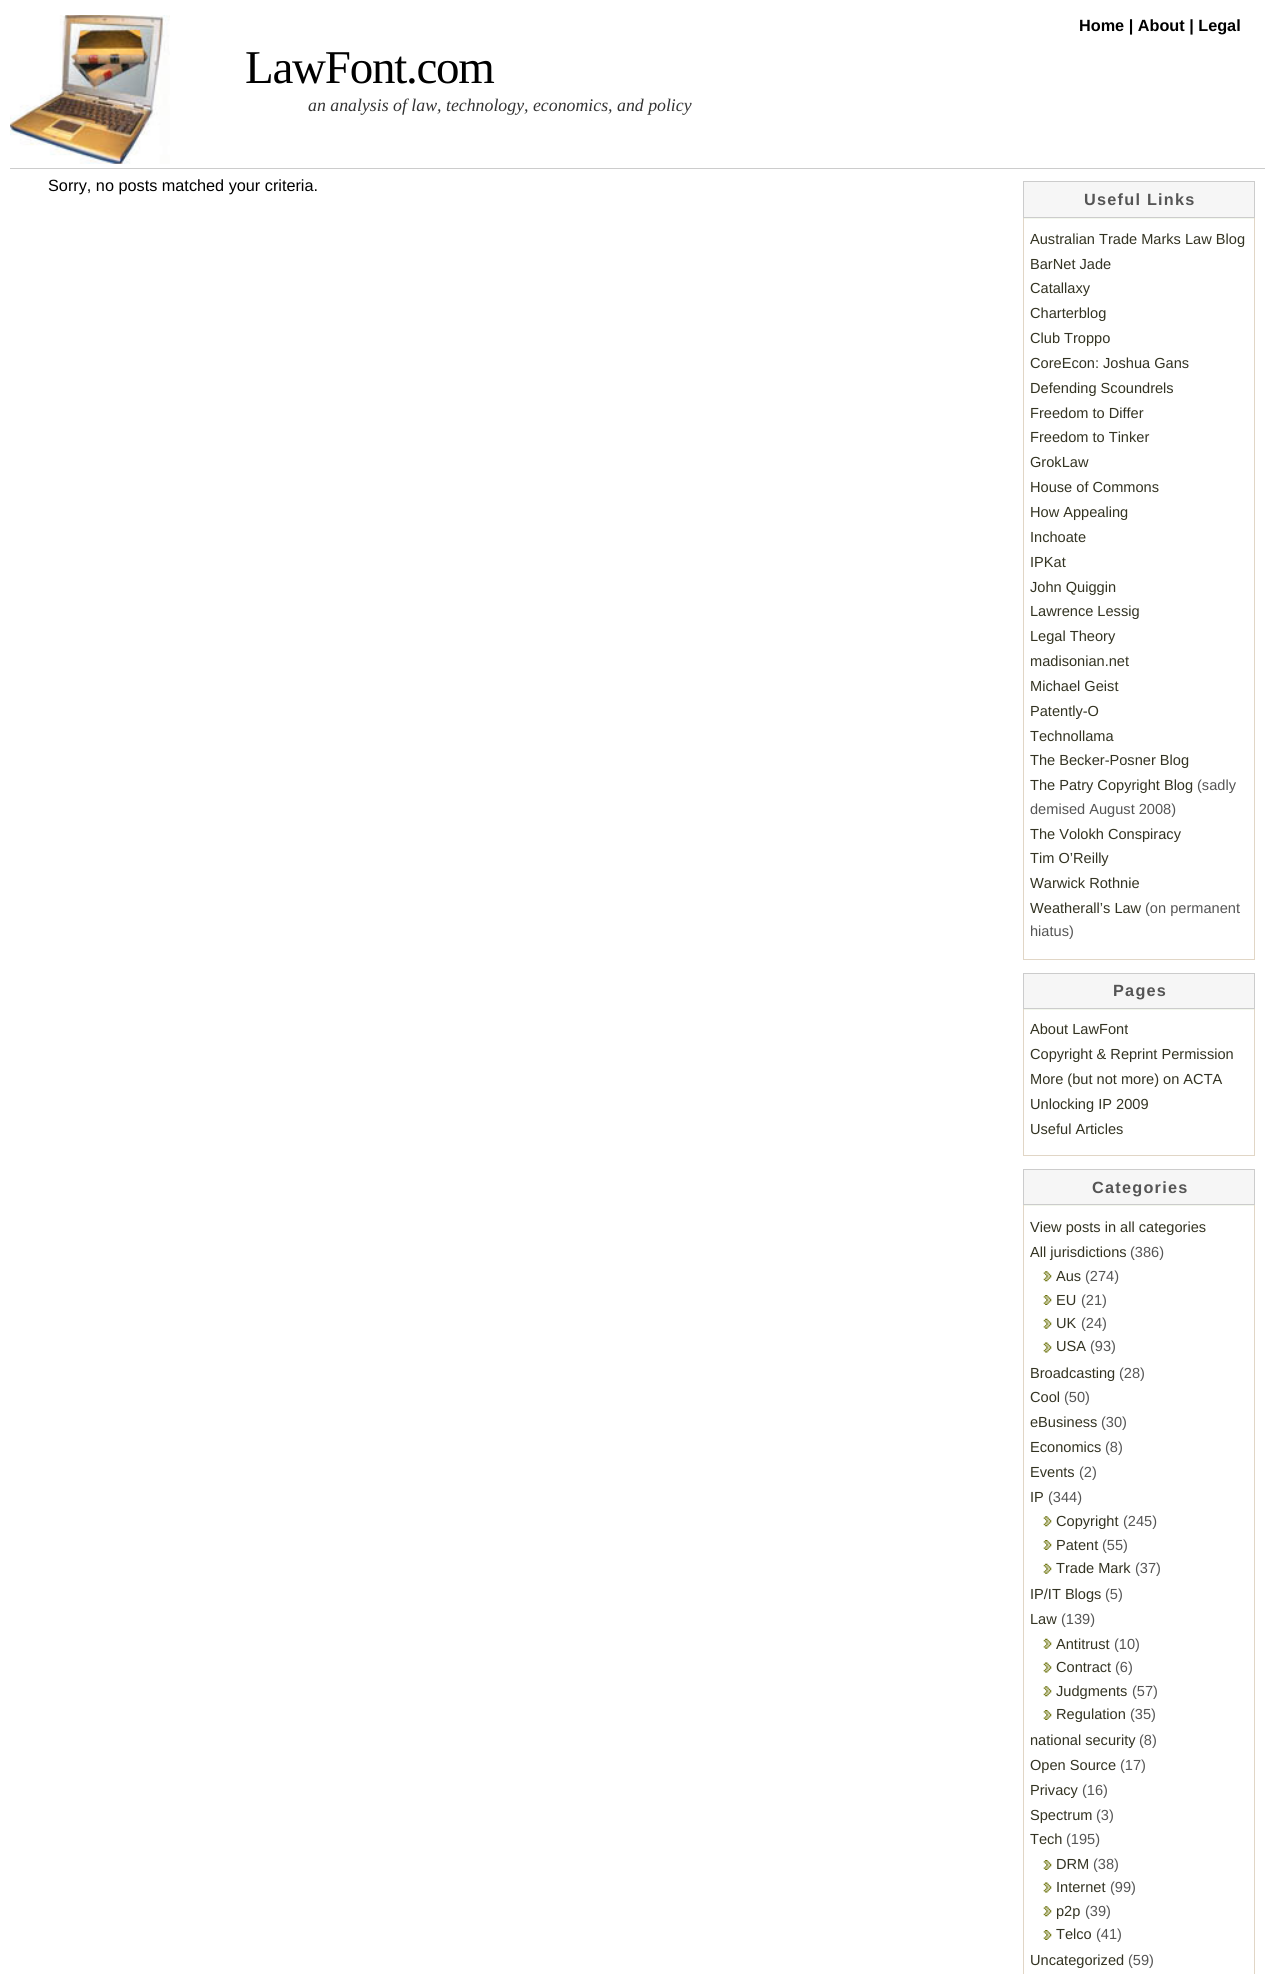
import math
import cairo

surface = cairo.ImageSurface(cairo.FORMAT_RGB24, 1275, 1974)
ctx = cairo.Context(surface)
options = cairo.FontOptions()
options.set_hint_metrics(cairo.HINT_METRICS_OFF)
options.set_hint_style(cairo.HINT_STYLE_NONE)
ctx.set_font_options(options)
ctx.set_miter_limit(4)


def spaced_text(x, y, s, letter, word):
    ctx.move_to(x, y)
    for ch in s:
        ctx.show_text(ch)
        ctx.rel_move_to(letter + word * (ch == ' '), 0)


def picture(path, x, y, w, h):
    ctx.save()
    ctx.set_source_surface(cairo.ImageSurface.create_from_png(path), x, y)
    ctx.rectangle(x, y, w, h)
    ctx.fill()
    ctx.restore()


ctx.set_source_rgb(1, 1, 1)
ctx.paint()
ctx.set_source_rgb(0.8, 0.8, 0.8)
ctx.rectangle(10, 168, 1255, 1)
ctx.fill()
picture("img1.png", 10, 15, 160, 149)
ctx.select_font_face("Liberation Sans", cairo.FONT_SLANT_NORMAL, cairo.FONT_WEIGHT_BOLD)
ctx.set_font_size(16.25)
ctx.set_source_rgb(0, 0, 0)
ctx.move_to(1079, 31)
ctx.show_text("Home | About | Legal")
ctx.select_font_face("Liberation Serif")
ctx.set_font_size(47)
spaced_text(245, 83, "LawFont.com", -1.25, 0)
ctx.select_font_face("Liberation Serif", cairo.FONT_SLANT_ITALIC)
ctx.set_font_size(17.8)
ctx.set_source_rgb(0.2, 0.2, 0.2)
ctx.move_to(308, 111)
ctx.show_text("an analysis of law, technology, economics, and policy")
ctx.select_font_face("Liberation Sans")
ctx.set_font_size(16.25)
ctx.set_source_rgb(0, 0, 0)
ctx.move_to(48, 191)
ctx.show_text("Sorry, no posts matched your criteria.")
ctx.set_source_rgb(0.961, 0.961, 0.961)
ctx.rectangle(1023.5, 181.5, 231, 36)
ctx.fill_preserve()
ctx.set_source_rgb(0.8, 0.8, 0.8)
ctx.set_line_width(1)
ctx.stroke()
ctx.select_font_face("Liberation Sans", cairo.FONT_SLANT_NORMAL, cairo.FONT_WEIGHT_BOLD)
ctx.set_source_rgb(0.333, 0.333, 0.333)
spaced_text(1084, 205, "Useful Links", 1.25, 0)
ctx.set_source_rgb(0.953, 0.965, 0.929)
ctx.rectangle(1023, 218, 232, 1)
ctx.fill()
ctx.set_source_rgb(0.882, 0.839, 0.776)
ctx.rectangle(1254, 218, 1, 742)
ctx.fill()
ctx.rectangle(1023, 959, 232, 1)
ctx.fill()
ctx.rectangle(1023, 218, 1, 742)
ctx.fill()
ctx.select_font_face("Liberation Sans")
ctx.set_font_size(14.6)
ctx.set_source_rgb(0.2, 0.2, 0.133)
ctx.move_to(1030, 244)
ctx.show_text("Australian Trade Marks Law Blog")
ctx.move_to(1030, 269)
ctx.show_text("BarNet Jade")
ctx.move_to(1030, 293)
ctx.show_text("Catallaxy")
ctx.move_to(1030, 318)
ctx.show_text("Charterblog")
ctx.move_to(1030, 343)
ctx.show_text("Club Troppo")
ctx.move_to(1030, 368)
ctx.show_text("CoreEcon: Joshua Gans")
ctx.move_to(1030, 393)
ctx.show_text("Defending Scoundrels")
ctx.move_to(1030, 418)
ctx.show_text("Freedom to Differ")
ctx.move_to(1030, 442)
ctx.show_text("Freedom to Tinker")
ctx.move_to(1030, 467)
ctx.show_text("GrokLaw")
ctx.move_to(1030, 492)
ctx.show_text("House of Commons")
ctx.move_to(1030, 517)
ctx.show_text("How Appealing")
ctx.move_to(1030, 542)
ctx.show_text("Inchoate")
ctx.move_to(1030, 567)
ctx.show_text("IPKat")
ctx.move_to(1030, 592)
ctx.show_text("John Quiggin")
ctx.move_to(1030, 616)
ctx.show_text("Lawrence Lessig")
ctx.move_to(1030, 641)
ctx.show_text("Legal Theory")
ctx.move_to(1030, 666)
ctx.show_text("madisonian.net")
ctx.move_to(1030, 691)
ctx.show_text("Michael Geist")
ctx.move_to(1030, 716)
ctx.show_text("Patently-O")
ctx.move_to(1030, 741)
ctx.show_text("Technollama")
ctx.move_to(1030, 765)
ctx.show_text("The Becker-Posner Blog")
ctx.move_to(1030, 790)
ctx.show_text("The Patry Copyright Blog")
ctx.set_source_rgb(0.333, 0.333, 0.333)
ctx.move_to(1197, 790)
ctx.show_text("(sadly")
ctx.move_to(1030, 814)
ctx.show_text("demised August 2008)")
ctx.set_source_rgb(0.2, 0.2, 0.133)
ctx.move_to(1030, 839)
ctx.show_text("The Volokh Conspiracy")
ctx.move_to(1030, 863)
ctx.show_text("Tim O’Reilly")
ctx.move_to(1030, 888)
ctx.show_text("Warwick Rothnie")
ctx.move_to(1030, 913)
ctx.show_text("Weatherall’s Law")
ctx.set_source_rgb(0.333, 0.333, 0.333)
ctx.move_to(1145, 913)
ctx.show_text("(on permanent")
ctx.move_to(1030, 936)
ctx.show_text("hiatus)")
ctx.set_source_rgb(0.961, 0.961, 0.961)
ctx.rectangle(1023.5, 973.5, 231, 35)
ctx.fill_preserve()
ctx.set_source_rgb(0.8, 0.8, 0.8)
ctx.stroke()
ctx.select_font_face("Liberation Sans", cairo.FONT_SLANT_NORMAL, cairo.FONT_WEIGHT_BOLD)
ctx.set_font_size(16.25)
ctx.set_source_rgb(0.333, 0.333, 0.333)
spaced_text(1113, 996, "Pages", 1.25, 0)
ctx.set_source_rgb(0.953, 0.965, 0.929)
ctx.rectangle(1023, 1009, 232, 1)
ctx.fill()
ctx.set_source_rgb(0.882, 0.839, 0.776)
ctx.rectangle(1254, 1009, 1, 147)
ctx.fill()
ctx.rectangle(1023, 1155, 232, 1)
ctx.fill()
ctx.rectangle(1023, 1009, 1, 147)
ctx.fill()
ctx.select_font_face("Liberation Sans")
ctx.set_font_size(14.6)
ctx.set_source_rgb(0.2, 0.2, 0.133)
ctx.move_to(1030, 1034)
ctx.show_text("About LawFont")
ctx.move_to(1030, 1059)
ctx.show_text("Copyright & Reprint Permission")
ctx.move_to(1030, 1084)
ctx.show_text("More (but not more) on ACTA")
ctx.move_to(1030, 1109)
ctx.show_text("Unlocking IP 2009")
ctx.move_to(1030, 1134)
ctx.show_text("Useful Articles")
ctx.set_source_rgb(0.961, 0.961, 0.961)
ctx.rectangle(1023.5, 1169.5, 231, 35)
ctx.fill_preserve()
ctx.set_source_rgb(0.8, 0.8, 0.8)
ctx.stroke()
ctx.select_font_face("Liberation Sans", cairo.FONT_SLANT_NORMAL, cairo.FONT_WEIGHT_BOLD)
ctx.set_font_size(16.25)
ctx.set_source_rgb(0.333, 0.333, 0.333)
spaced_text(1092, 1193, "Categories", 1.25, 0)
ctx.set_source_rgb(0.953, 0.965, 0.929)
ctx.rectangle(1023, 1205, 232, 1)
ctx.fill()
ctx.set_source_rgb(0.882, 0.839, 0.776)
ctx.rectangle(1254, 1205, 1, 769)
ctx.fill()
ctx.rectangle(1023, 1205, 1, 769)
ctx.fill()
ctx.select_font_face("Liberation Sans")
ctx.set_font_size(14.6)
ctx.set_source_rgb(0.2, 0.2, 0.133)
ctx.move_to(1030, 1232)
ctx.show_text("View posts in all categories")
ctx.move_to(1030, 1257)
ctx.show_text("All jurisdictions")
ctx.set_source_rgb(0.333, 0.333, 0.333)
ctx.move_to(1130, 1257)
ctx.show_text("(386)")
picture("img2.png", 1043, 1271, 9, 11)
ctx.set_source_rgb(0.2, 0.2, 0.133)
ctx.move_to(1056, 1281)
ctx.show_text("Aus")
ctx.set_source_rgb(0.333, 0.333, 0.333)
ctx.move_to(1085, 1281)
ctx.show_text("(274)")
picture("img3.png", 1043, 1295, 9, 10)
ctx.set_source_rgb(0.2, 0.2, 0.133)
ctx.move_to(1056, 1305)
ctx.show_text("EU")
ctx.set_source_rgb(0.333, 0.333, 0.333)
ctx.move_to(1081, 1305)
ctx.show_text("(21)")
picture("img4.png", 1043, 1318, 9, 11)
ctx.set_source_rgb(0.2, 0.2, 0.133)
ctx.move_to(1056, 1328)
ctx.show_text("UK")
ctx.set_source_rgb(0.333, 0.333, 0.333)
ctx.move_to(1081, 1328)
ctx.show_text("(24)")
picture("img5.png", 1043, 1342, 9, 11)
ctx.set_source_rgb(0.2, 0.2, 0.133)
ctx.move_to(1056, 1351)
ctx.show_text("USA")
ctx.set_source_rgb(0.333, 0.333, 0.333)
ctx.move_to(1090, 1351)
ctx.show_text("(93)")
ctx.set_source_rgb(0.2, 0.2, 0.133)
ctx.move_to(1030, 1378)
ctx.show_text("Broadcasting")
ctx.set_source_rgb(0.333, 0.333, 0.333)
ctx.move_to(1119, 1378)
ctx.show_text("(28)")
ctx.set_source_rgb(0.2, 0.2, 0.133)
ctx.move_to(1030, 1402)
ctx.show_text("Cool")
ctx.set_source_rgb(0.333, 0.333, 0.333)
ctx.move_to(1064, 1402)
ctx.show_text("(50)")
ctx.set_source_rgb(0.2, 0.2, 0.133)
ctx.move_to(1030, 1427)
ctx.show_text("eBusiness")
ctx.set_source_rgb(0.333, 0.333, 0.333)
ctx.move_to(1101, 1427)
ctx.show_text("(30)")
ctx.set_source_rgb(0.2, 0.2, 0.133)
ctx.move_to(1030, 1452)
ctx.show_text("Economics")
ctx.set_source_rgb(0.333, 0.333, 0.333)
ctx.move_to(1105, 1452)
ctx.show_text("(8)")
ctx.set_source_rgb(0.2, 0.2, 0.133)
ctx.move_to(1030, 1477)
ctx.show_text("Events")
ctx.set_source_rgb(0.333, 0.333, 0.333)
ctx.move_to(1079, 1477)
ctx.show_text("(2)")
ctx.set_source_rgb(0.2, 0.2, 0.133)
ctx.move_to(1030, 1502)
ctx.show_text("IP")
ctx.set_source_rgb(0.333, 0.333, 0.333)
ctx.move_to(1048, 1502)
ctx.show_text("(344)")
picture("img2.png", 1043, 1516, 9, 11)
ctx.set_source_rgb(0.2, 0.2, 0.133)
ctx.move_to(1056, 1526)
ctx.show_text("Copyright")
ctx.set_source_rgb(0.333, 0.333, 0.333)
ctx.move_to(1123, 1526)
ctx.show_text("(245)")
picture("img3.png", 1043, 1540, 9, 10)
ctx.set_source_rgb(0.2, 0.2, 0.133)
ctx.move_to(1056, 1550)
ctx.show_text("Patent")
ctx.set_source_rgb(0.333, 0.333, 0.333)
ctx.move_to(1102, 1550)
ctx.show_text("(55)")
picture("img6.png", 1043, 1563, 9, 11)
ctx.set_source_rgb(0.2, 0.2, 0.133)
ctx.move_to(1056, 1573)
ctx.show_text("Trade Mark")
ctx.set_source_rgb(0.333, 0.333, 0.333)
ctx.move_to(1135, 1573)
ctx.show_text("(37)")
ctx.set_source_rgb(0.2, 0.2, 0.133)
ctx.move_to(1030, 1599)
ctx.show_text("IP/IT Blogs")
ctx.set_source_rgb(0.333, 0.333, 0.333)
ctx.move_to(1105, 1599)
ctx.show_text("(5)")
ctx.set_source_rgb(0.2, 0.2, 0.133)
ctx.move_to(1030, 1624)
ctx.show_text("Law")
ctx.set_source_rgb(0.333, 0.333, 0.333)
ctx.move_to(1061, 1624)
ctx.show_text("(139)")
picture("img4.png", 1043, 1638, 9, 11)
ctx.set_source_rgb(0.2, 0.2, 0.133)
ctx.move_to(1056, 1649)
ctx.show_text("Antitrust")
ctx.set_source_rgb(0.333, 0.333, 0.333)
ctx.move_to(1114, 1649)
ctx.show_text("(10)")
picture("img5.png", 1043, 1662, 9, 11)
ctx.set_source_rgb(0.2, 0.2, 0.133)
ctx.move_to(1056, 1672)
ctx.show_text("Contract")
ctx.set_source_rgb(0.333, 0.333, 0.333)
ctx.move_to(1115, 1672)
ctx.show_text("(6)")
picture("img2.png", 1043, 1686, 9, 11)
ctx.set_source_rgb(0.2, 0.2, 0.133)
ctx.move_to(1056, 1696)
ctx.show_text("Judgments")
ctx.set_source_rgb(0.333, 0.333, 0.333)
ctx.move_to(1132, 1696)
ctx.show_text("(57)")
picture("img3.png", 1043, 1710, 9, 10)
ctx.set_source_rgb(0.2, 0.2, 0.133)
ctx.move_to(1056, 1719)
ctx.show_text("Regulation")
ctx.set_source_rgb(0.333, 0.333, 0.333)
ctx.move_to(1130, 1719)
ctx.show_text("(35)")
ctx.set_source_rgb(0.2, 0.2, 0.133)
ctx.move_to(1030, 1745)
ctx.show_text("national security")
ctx.set_source_rgb(0.333, 0.333, 0.333)
ctx.move_to(1139, 1745)
ctx.show_text("(8)")
ctx.set_source_rgb(0.2, 0.2, 0.133)
ctx.move_to(1030, 1770)
ctx.show_text("Open Source")
ctx.set_source_rgb(0.333, 0.333, 0.333)
ctx.move_to(1120, 1770)
ctx.show_text("(17)")
ctx.set_source_rgb(0.2, 0.2, 0.133)
ctx.move_to(1030, 1795)
ctx.show_text("Privacy")
ctx.set_source_rgb(0.333, 0.333, 0.333)
ctx.move_to(1082, 1795)
ctx.show_text("(16)")
ctx.set_source_rgb(0.2, 0.2, 0.133)
ctx.move_to(1030, 1820)
ctx.show_text("Spectrum")
ctx.set_source_rgb(0.333, 0.333, 0.333)
ctx.move_to(1096, 1820)
ctx.show_text("(3)")
ctx.set_source_rgb(0.2, 0.2, 0.133)
ctx.move_to(1030, 1844)
ctx.show_text("Tech")
ctx.set_source_rgb(0.333, 0.333, 0.333)
ctx.move_to(1066, 1844)
ctx.show_text("(195)")
picture("img3.png", 1043, 1860, 9, 10)
ctx.set_source_rgb(0.2, 0.2, 0.133)
ctx.move_to(1056, 1869)
ctx.show_text("DRM")
ctx.set_source_rgb(0.333, 0.333, 0.333)
ctx.move_to(1093, 1869)
ctx.show_text("(38)")
picture("img5.png", 1043, 1882, 9, 11)
ctx.set_source_rgb(0.2, 0.2, 0.133)
ctx.move_to(1056, 1892)
ctx.show_text("Internet")
ctx.set_source_rgb(0.333, 0.333, 0.333)
ctx.move_to(1110, 1892)
ctx.show_text("(99)")
picture("img2.png", 1043, 1906, 9, 11)
ctx.set_source_rgb(0.2, 0.2, 0.133)
ctx.move_to(1056, 1916)
ctx.show_text("p2p")
ctx.set_source_rgb(0.333, 0.333, 0.333)
ctx.move_to(1085, 1916)
ctx.show_text("(39)")
picture("img3.png", 1043, 1930, 9, 10)
ctx.set_source_rgb(0.2, 0.2, 0.133)
ctx.move_to(1056, 1939)
ctx.show_text("Telco")
ctx.set_source_rgb(0.333, 0.333, 0.333)
ctx.move_to(1096, 1939)
ctx.show_text("(41)")
ctx.set_source_rgb(0.2, 0.2, 0.133)
ctx.move_to(1030, 1965)
ctx.show_text("Uncategorized")
ctx.set_source_rgb(0.333, 0.333, 0.333)
ctx.move_to(1128, 1965)
ctx.show_text("(59)")
surface.write_to_png("page.png")
